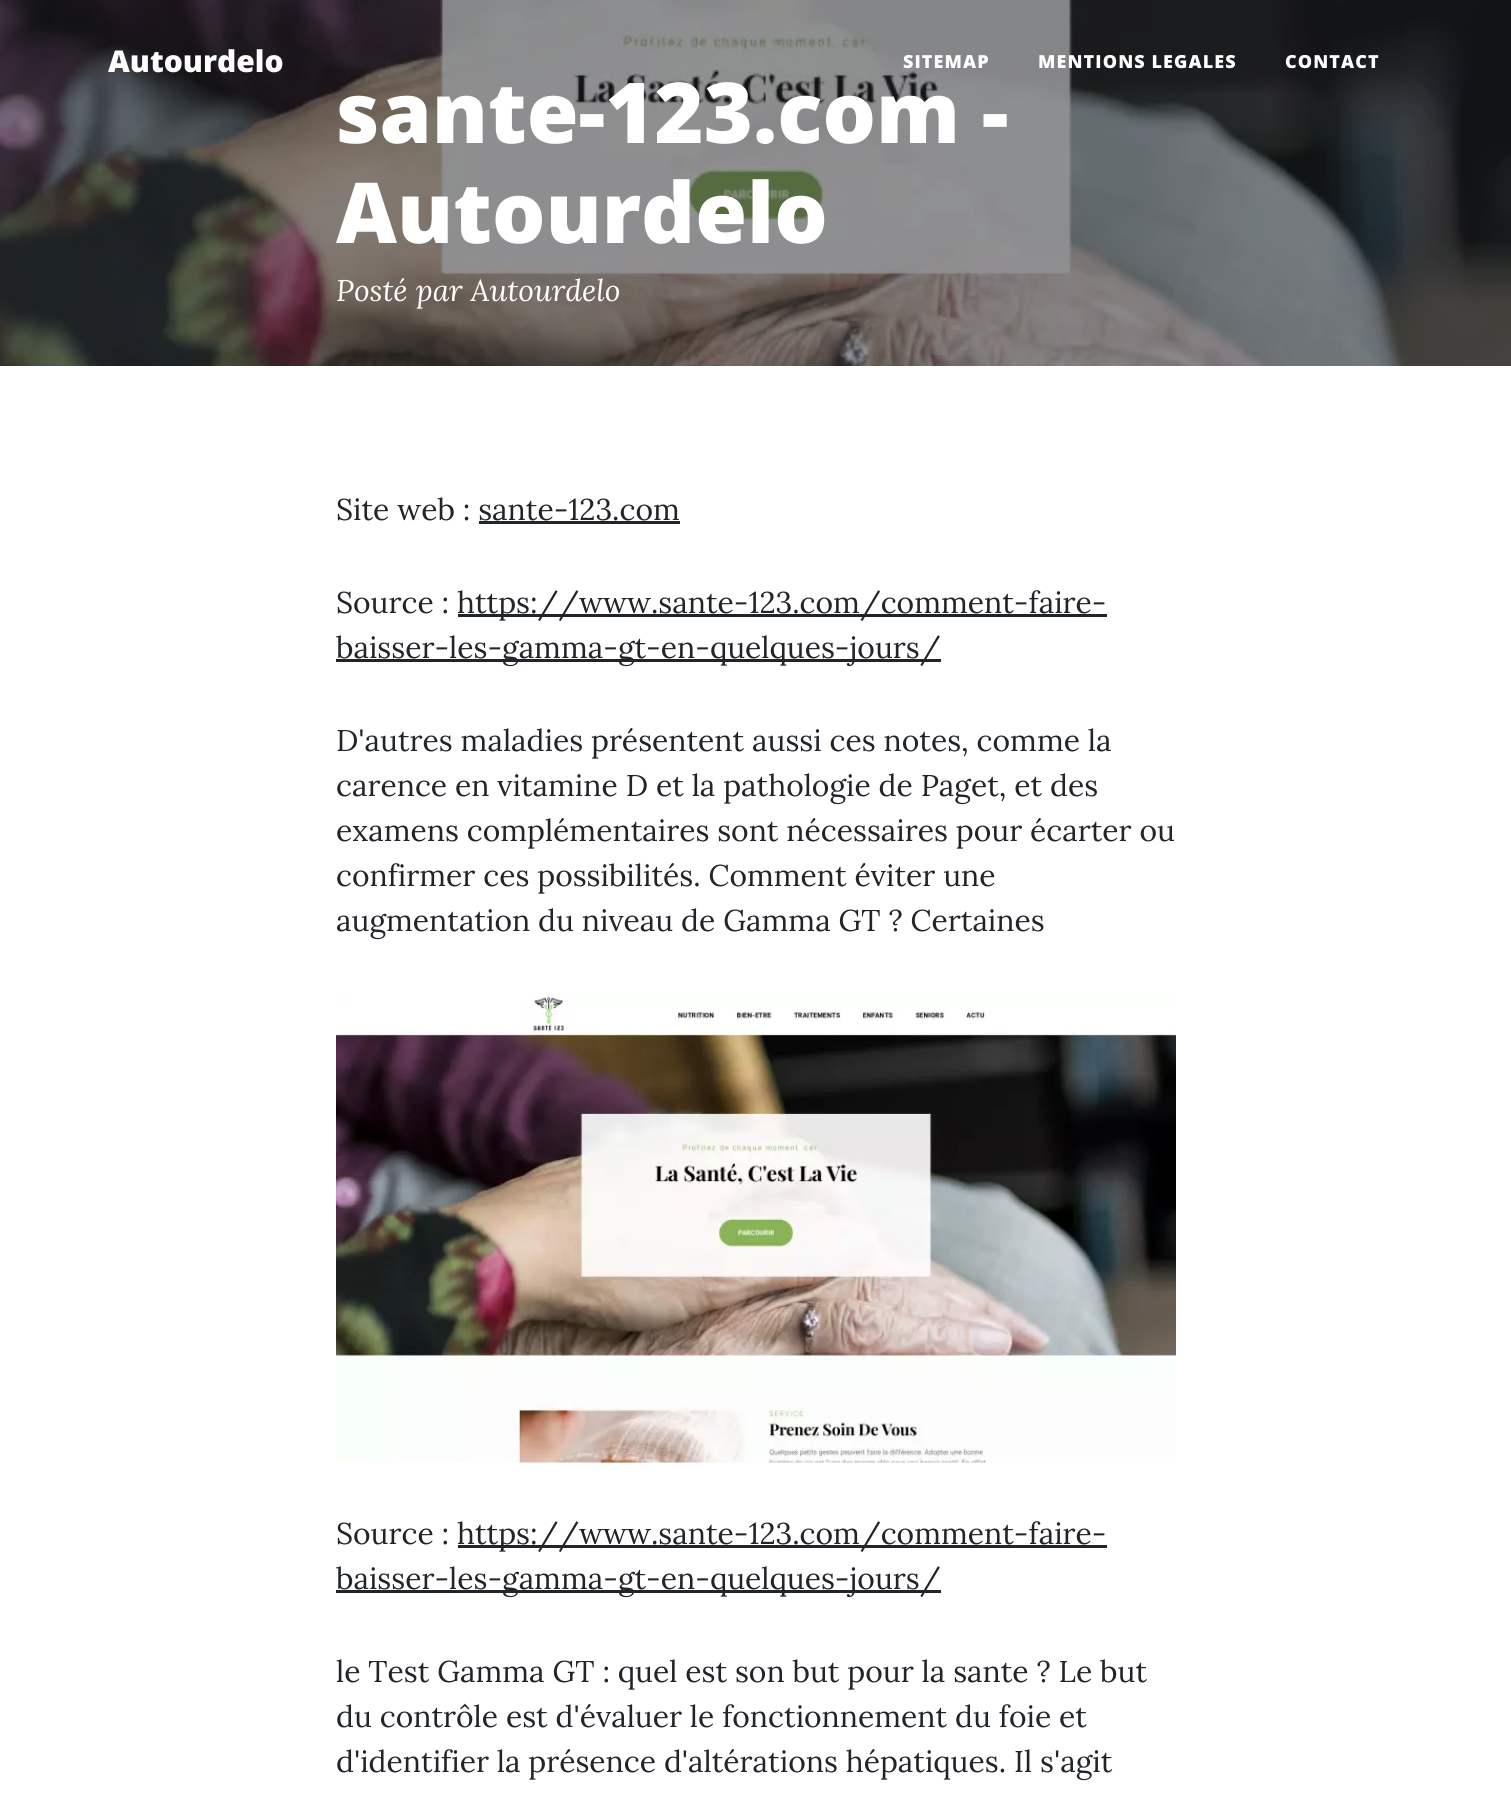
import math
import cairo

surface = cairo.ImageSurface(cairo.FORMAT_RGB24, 1511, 1793)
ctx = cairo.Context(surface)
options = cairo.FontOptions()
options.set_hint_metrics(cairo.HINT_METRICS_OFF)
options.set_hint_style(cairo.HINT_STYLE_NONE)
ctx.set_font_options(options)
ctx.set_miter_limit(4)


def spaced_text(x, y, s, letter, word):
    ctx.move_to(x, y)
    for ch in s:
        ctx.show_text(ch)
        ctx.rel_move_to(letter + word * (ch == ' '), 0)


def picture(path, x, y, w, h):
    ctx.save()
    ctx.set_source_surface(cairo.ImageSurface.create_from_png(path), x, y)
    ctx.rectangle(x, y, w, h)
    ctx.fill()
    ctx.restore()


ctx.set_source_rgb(1, 1, 1)
ctx.paint()
picture("img1.png", 0, 0, 1511, 366)
ctx.select_font_face("Open Sans ExtraBold")
ctx.set_font_size(30)
ctx.set_source_rgb(1, 1, 1)
ctx.move_to(108, 72)
ctx.show_text("Autourdelo")
ctx.set_font_size(18)
spaced_text(903, 68, "SITEMAP", 1.1, 0)
spaced_text(1038, 68, "MENTIONS LEGALES", 1.1, 0)
spaced_text(1285, 68, "CONTACT", 1.1, 0)
ctx.set_font_size(84)
ctx.move_to(336, 143)
ctx.show_text("sante-123.com -")
ctx.move_to(336, 243)
ctx.show_text("Autourdelo")
ctx.select_font_face("Lora", cairo.FONT_SLANT_ITALIC)
ctx.set_font_size(30)
ctx.move_to(336, 301)
ctx.show_text("Posté par Autourdelo")
ctx.select_font_face("Lora")
ctx.set_source_rgb(0.129, 0.145, 0.161)
ctx.move_to(336, 520)
ctx.show_text("Site web : sante-123.com")
ctx.rectangle(479, 521, 201, 3)
ctx.fill()
ctx.move_to(336, 613)
ctx.show_text("Source :")
ctx.rectangle(458, 614, 649, 3)
ctx.fill()
ctx.move_to(457, 613)
ctx.show_text("https://www.sante-123.com/comment-faire-")
ctx.rectangle(336, 659, 605, 3)
ctx.fill()
ctx.move_to(336, 658)
ctx.show_text("baisser-les-gamma-gt-en-quelques-jours/")
ctx.move_to(336, 751)
ctx.show_text("D'autres maladies présentent aussi ces notes, comme la")
ctx.move_to(336, 796)
ctx.show_text("carence en vitamine D et la pathologie de Paget, et des")
ctx.move_to(336, 841)
ctx.show_text("examens complémentaires sont nécessaires pour écarter ou")
ctx.move_to(336, 886)
ctx.show_text("confirmer ces possibilités. Comment éviter une")
ctx.move_to(336, 931)
ctx.show_text("augmentation du niveau de Gamma GT ? Certaines")
picture("img2.png", 336, 994, 840, 469)
ctx.move_to(336, 1544)
ctx.show_text("Source :")
ctx.rectangle(458, 1545, 649, 3)
ctx.fill()
ctx.move_to(457, 1544)
ctx.show_text("https://www.sante-123.com/comment-faire-")
ctx.rectangle(336, 1590, 605, 3)
ctx.fill()
ctx.move_to(336, 1589)
ctx.show_text("baisser-les-gamma-gt-en-quelques-jours/")
ctx.move_to(336, 1682)
ctx.show_text("le Test Gamma GT : quel est son but pour la sante ? Le but")
ctx.move_to(336, 1727)
ctx.show_text("du contrôle est d'évaluer le fonctionnement du foie et")
ctx.move_to(336, 1772)
ctx.show_text("d'identifier la présence d'altérations hépatiques. Il s'agit")
surface.write_to_png("page.png")
